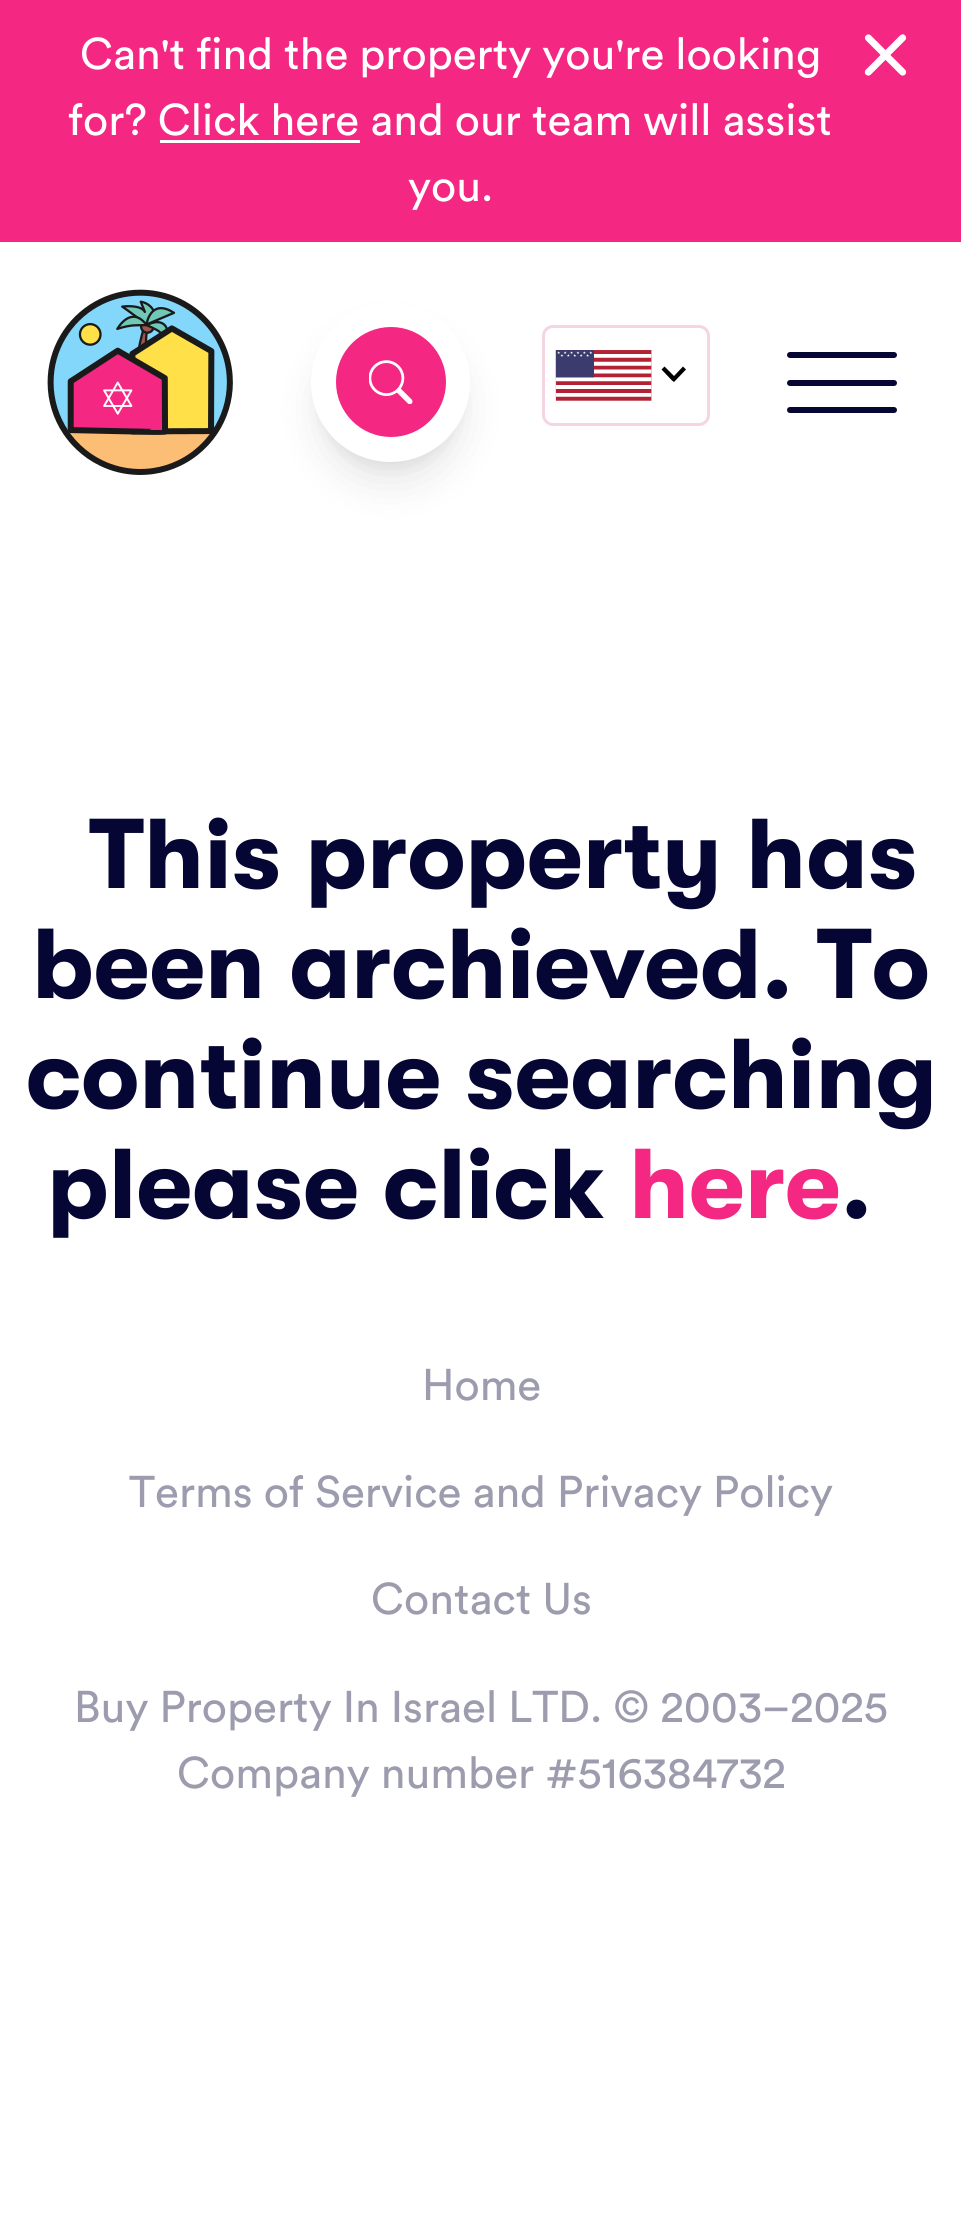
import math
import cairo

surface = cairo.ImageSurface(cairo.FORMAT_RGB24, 961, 2220)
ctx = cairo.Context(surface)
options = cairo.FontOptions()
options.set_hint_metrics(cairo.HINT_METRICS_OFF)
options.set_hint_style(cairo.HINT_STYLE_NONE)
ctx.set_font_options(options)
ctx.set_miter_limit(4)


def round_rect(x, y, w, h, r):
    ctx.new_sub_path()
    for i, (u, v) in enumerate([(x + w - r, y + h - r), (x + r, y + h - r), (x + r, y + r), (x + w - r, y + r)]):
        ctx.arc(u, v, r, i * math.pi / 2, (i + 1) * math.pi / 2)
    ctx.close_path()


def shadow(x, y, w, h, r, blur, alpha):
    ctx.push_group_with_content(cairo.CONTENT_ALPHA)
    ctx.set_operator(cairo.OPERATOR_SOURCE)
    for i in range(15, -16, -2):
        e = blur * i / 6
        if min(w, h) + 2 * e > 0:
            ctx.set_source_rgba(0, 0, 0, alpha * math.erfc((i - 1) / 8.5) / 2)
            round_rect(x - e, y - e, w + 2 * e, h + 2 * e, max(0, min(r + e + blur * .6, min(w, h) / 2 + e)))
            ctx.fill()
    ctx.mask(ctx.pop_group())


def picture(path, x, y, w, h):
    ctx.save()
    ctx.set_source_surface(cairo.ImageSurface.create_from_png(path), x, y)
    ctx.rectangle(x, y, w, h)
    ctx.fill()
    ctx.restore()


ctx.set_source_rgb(1, 1, 1)
ctx.paint()
ctx.set_source_rgb(0.957, 0.153, 0.51)
ctx.rectangle(0, 0, 961, 242)
ctx.fill()
ctx.select_font_face("Circular")
ctx.set_font_size(44)
ctx.set_source_rgb(1, 1, 1)
ctx.move_to(80, 69)
ctx.show_text("Can't find the property you're looking")
ctx.move_to(68, 135)
ctx.show_text("for? Click here and our team will assist")
ctx.rectangle(160, 140, 200, 3)
ctx.fill()
ctx.move_to(408, 201)
ctx.show_text("you.")
picture("img1.png", 864, 34, 43, 42)
picture("img2.png", 47, 289, 186, 186)
ctx.set_source_rgb(0, 0, 0)
shadow(322, 325, 137, 137, 68.5, 8, 0.1)
shadow(319, 338, 143, 143, 71.5, 20.5, 0.1)
ctx.set_source_rgb(1, 1, 1)
ctx.arc(390.5, 382.5, 79.5, 0, 2 * math.pi)
ctx.fill()
ctx.set_source_rgb(0.957, 0.153, 0.51)
ctx.arc(391, 382, 55, 0, 2 * math.pi)
ctx.fill()
picture("img3.png", 369, 360, 44, 44)
round_rect(543.5, 326.5, 165, 98, 9.5)
ctx.set_source_rgb(0.965, 0.831, 0.89)
ctx.set_line_width(3)
ctx.stroke()
picture("img4.png", 555, 350, 97, 51)
ctx.set_source_rgb(0, 0, 0)
ctx.new_path()
ctx.move_to(672, 380.5)
ctx.line_to(674, 382)
ctx.line_to(686, 369.5)
ctx.line_to(683, 366.5)
ctx.line_to(674, 376)
ctx.line_to(664.5, 366.5)
ctx.line_to(661.5, 369.5)
ctx.close_path()
ctx.fill()
ctx.set_source_rgb(0.027, 0.027, 0.204)
round_rect(787, 352, 110, 6, 3)
ctx.fill()
round_rect(787, 380, 110, 6, 3)
ctx.fill()
round_rect(787, 407, 110, 6, 3)
ctx.fill()
ctx.select_font_face("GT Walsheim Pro", cairo.FONT_SLANT_NORMAL, cairo.FONT_WEIGHT_BOLD)
ctx.set_font_size(99)
ctx.move_to(89, 888)
ctx.show_text("This property has")
ctx.move_to(32, 998)
ctx.show_text("been archieved. To")
ctx.move_to(26, 1108)
ctx.show_text("continue searching")
ctx.move_to(47, 1218)
ctx.show_text("please click")
ctx.set_source_rgb(0.957, 0.153, 0.51)
ctx.move_to(629, 1218)
ctx.show_text("here")
ctx.set_source_rgb(0.027, 0.027, 0.204)
ctx.move_to(841, 1218)
ctx.show_text(".")
ctx.select_font_face("Circular")
ctx.set_font_size(44)
ctx.set_source_rgb(0.612, 0.612, 0.682)
ctx.move_to(422, 1400)
ctx.show_text("Home")
ctx.move_to(129, 1507)
ctx.show_text("Terms of Service and Privacy Policy")
ctx.move_to(371, 1614)
ctx.show_text("Contact Us")
ctx.move_to(74, 1722)
ctx.show_text("Buy Property In Israel LTD. © 2003–2025")
ctx.move_to(177, 1788)
ctx.show_text("Company number #516384732")
surface.write_to_png("page.png")
